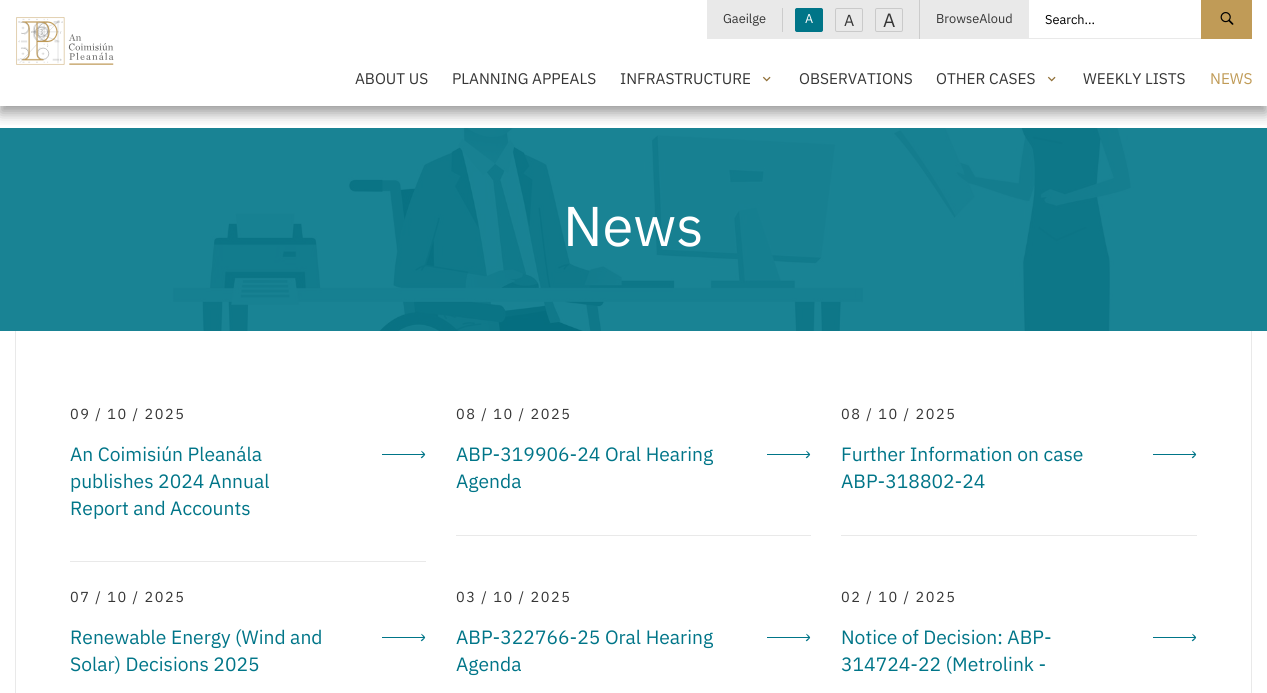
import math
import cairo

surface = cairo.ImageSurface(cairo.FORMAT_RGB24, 1267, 693)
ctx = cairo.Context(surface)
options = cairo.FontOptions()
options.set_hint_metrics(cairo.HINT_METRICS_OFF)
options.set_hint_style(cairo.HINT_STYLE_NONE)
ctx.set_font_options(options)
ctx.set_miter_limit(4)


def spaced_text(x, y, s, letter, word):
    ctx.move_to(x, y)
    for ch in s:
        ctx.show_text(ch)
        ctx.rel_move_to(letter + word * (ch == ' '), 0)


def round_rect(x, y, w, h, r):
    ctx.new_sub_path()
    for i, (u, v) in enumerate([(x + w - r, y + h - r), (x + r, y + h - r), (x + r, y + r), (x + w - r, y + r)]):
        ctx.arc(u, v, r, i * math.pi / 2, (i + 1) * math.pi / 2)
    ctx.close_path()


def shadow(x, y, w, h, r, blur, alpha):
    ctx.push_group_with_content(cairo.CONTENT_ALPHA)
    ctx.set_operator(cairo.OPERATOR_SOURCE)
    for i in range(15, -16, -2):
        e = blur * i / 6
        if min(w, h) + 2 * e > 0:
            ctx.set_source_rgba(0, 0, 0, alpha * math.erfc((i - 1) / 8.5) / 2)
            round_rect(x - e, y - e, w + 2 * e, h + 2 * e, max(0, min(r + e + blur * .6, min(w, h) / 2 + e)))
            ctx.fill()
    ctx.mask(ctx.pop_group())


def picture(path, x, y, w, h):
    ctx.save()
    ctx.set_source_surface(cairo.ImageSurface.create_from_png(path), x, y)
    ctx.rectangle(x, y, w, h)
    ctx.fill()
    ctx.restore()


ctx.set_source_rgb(1, 1, 1)
ctx.paint()
picture("img4.png", 0, 128, 1267, 203)
ctx.save()
ctx.rectangle(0, 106, 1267, 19)
ctx.clip()
ctx.set_source_rgb(0.196, 0.196, 0.196)
shadow(0, 7, 1267, 106, 0, 7, 0.5)
ctx.restore()
picture("img1.png", 16, 17, 98, 48)
ctx.set_source_rgb(0.914, 0.914, 0.914)
ctx.rectangle(707, 0, 322, 39)
ctx.fill()
ctx.select_font_face("IBM Plex Sans")
ctx.set_font_size(12.75)
ctx.set_source_rgb(0.212, 0.212, 0.212)
ctx.move_to(723, 23)
ctx.show_text("Gaeilge")
ctx.set_source_rgb(0.8, 0.8, 0.8)
ctx.rectangle(782, 8, 1, 24)
ctx.fill()
ctx.set_source_rgb(0, 0.459, 0.533)
round_rect(795.5, 8.5, 27, 23, 1.5)
ctx.fill_preserve()
ctx.set_line_width(1)
ctx.stroke()
ctx.set_source_rgb(1, 1, 1)
ctx.move_to(805, 23)
ctx.show_text("A")
round_rect(835.5, 8.5, 27, 23, 1.5)
ctx.set_source_rgb(0.792, 0.792, 0.792)
ctx.stroke()
ctx.set_font_size(16)
ctx.set_source_rgb(0.212, 0.212, 0.212)
ctx.move_to(844, 26)
ctx.show_text("A")
round_rect(875.5, 8.5, 27, 23, 1.5)
ctx.set_source_rgb(0.792, 0.792, 0.792)
ctx.stroke()
ctx.set_font_size(19.25)
ctx.set_source_rgb(0.212, 0.212, 0.212)
ctx.move_to(883, 27)
ctx.show_text("A")
ctx.set_source_rgb(0.8, 0.8, 0.8)
ctx.rectangle(919, 0, 1, 39)
ctx.fill()
ctx.set_font_size(12.75)
ctx.set_source_rgb(0.212, 0.212, 0.212)
ctx.move_to(936, 23)
ctx.show_text("BrowseAloud")
ctx.set_source_rgb(0.914, 0.914, 0.914)
ctx.rectangle(1029, 38, 172, 1)
ctx.fill()
ctx.set_source_rgb(0, 0, 0)
ctx.move_to(1045, 24)
ctx.show_text("Search...")
ctx.set_source_rgb(0.753, 0.608, 0.341)
ctx.rectangle(1201, 0, 51, 39)
ctx.fill()
picture("img2.png", 1220, 12, 14, 13)
ctx.set_font_size(15.4)
ctx.set_source_rgb(0.212, 0.212, 0.212)
ctx.move_to(355, 84)
ctx.show_text("ABOUT US")
ctx.move_to(452, 84)
ctx.show_text("PLANNING APPEALS")
ctx.move_to(620, 84)
ctx.show_text("INFRASTRUCTURE")
picture("img3.png", 762, 76, 9, 6)
ctx.move_to(799, 84)
ctx.show_text("OBSERVATIONS")
ctx.move_to(936, 84)
ctx.show_text("OTHER CASES")
picture("img3.png", 1047, 76, 9, 6)
ctx.move_to(1083, 84)
ctx.show_text("WEEKLY LISTS")
ctx.set_source_rgb(0.753, 0.608, 0.341)
ctx.move_to(1210, 84)
ctx.show_text("NEWS")
ctx.set_font_size(56)
ctx.set_source_rgb(1, 1, 1)
ctx.move_to(563, 246)
ctx.show_text("News")
ctx.set_source_rgb(0.914, 0.914, 0.914)
ctx.rectangle(1251, 331, 1, 362)
ctx.fill()
ctx.rectangle(15, 331, 1, 362)
ctx.fill()
ctx.rectangle(70, 561, 356, 1)
ctx.fill()
ctx.set_font_size(14.5)
ctx.set_source_rgb(0.212, 0.212, 0.212)
spaced_text(70, 419, "09 / 10 / 2025", 1.5, 0)
ctx.set_font_size(19.25)
ctx.set_source_rgb(0, 0.459, 0.533)
ctx.move_to(70, 461)
ctx.show_text("An Coimisiún Pleanála")
ctx.new_path()
ctx.move_to(425, 455)
ctx.curve_to(426, 454, 421, 450, 421, 451)
ctx.line_to(424, 455)
ctx.curve_to(423, 455, 420, 458, 421, 458)
ctx.curve_to(422, 459, 424, 456, 425, 455)
ctx.close_path()
ctx.move_to(382, 455)
ctx.line_to(424, 455)
ctx.line_to(424, 454)
ctx.line_to(382, 454)
ctx.close_path()
ctx.fill()
ctx.move_to(70, 488)
ctx.show_text("publishes 2024 Annual")
ctx.move_to(70, 515)
ctx.show_text("Report and Accounts")
ctx.set_source_rgb(0.914, 0.914, 0.914)
ctx.rectangle(456, 535, 355, 1)
ctx.fill()
ctx.set_font_size(14.5)
ctx.set_source_rgb(0.212, 0.212, 0.212)
spaced_text(456, 419, "08 / 10 / 2025", 1.5, 0)
ctx.set_font_size(19.25)
ctx.set_source_rgb(0, 0.459, 0.533)
ctx.move_to(456, 461)
ctx.show_text("ABP-319906-24 Oral Hearing")
ctx.new_path()
ctx.move_to(810, 455)
ctx.curve_to(811, 454, 806, 450, 806, 451)
ctx.line_to(809, 455)
ctx.curve_to(808, 455, 805, 458, 806, 458)
ctx.curve_to(807, 459, 809, 456, 810, 455)
ctx.close_path()
ctx.move_to(767, 455)
ctx.line_to(809, 455)
ctx.line_to(809, 454)
ctx.line_to(767, 454)
ctx.close_path()
ctx.fill()
ctx.move_to(456, 488)
ctx.show_text("Agenda")
ctx.set_source_rgb(0.914, 0.914, 0.914)
ctx.rectangle(841, 535, 356, 1)
ctx.fill()
ctx.set_font_size(14.5)
ctx.set_source_rgb(0.212, 0.212, 0.212)
spaced_text(841, 419, "08 / 10 / 2025", 1.5, 0)
ctx.set_font_size(19.25)
ctx.set_source_rgb(0, 0.459, 0.533)
ctx.move_to(841, 461)
ctx.show_text("Further Information on case")
ctx.new_path()
ctx.move_to(1196, 455)
ctx.curve_to(1197, 454, 1192, 450, 1192, 451)
ctx.line_to(1195, 455)
ctx.curve_to(1194, 455, 1191, 458, 1192, 458)
ctx.curve_to(1193, 459, 1195, 456, 1196, 455)
ctx.close_path()
ctx.move_to(1153, 455)
ctx.line_to(1195, 455)
ctx.line_to(1195, 454)
ctx.line_to(1153, 454)
ctx.close_path()
ctx.fill()
ctx.move_to(841, 488)
ctx.show_text("ABP-318802-24")
ctx.set_font_size(14.5)
ctx.set_source_rgb(0.212, 0.212, 0.212)
spaced_text(70, 602, "07 / 10 / 2025", 1.5, 0)
ctx.set_font_size(19.25)
ctx.set_source_rgb(0, 0.459, 0.533)
ctx.move_to(70, 644)
ctx.show_text("Renewable Energy (Wind and")
ctx.new_path()
ctx.move_to(425, 638)
ctx.curve_to(426, 637, 421, 633, 421, 634)
ctx.line_to(424, 638)
ctx.curve_to(423, 638, 420, 641, 421, 641)
ctx.curve_to(422, 642, 424, 639, 425, 638)
ctx.close_path()
ctx.move_to(382, 638)
ctx.line_to(424, 638)
ctx.line_to(424, 637)
ctx.line_to(382, 637)
ctx.close_path()
ctx.fill()
ctx.move_to(70, 671)
ctx.show_text("Solar) Decisions 2025")
ctx.set_font_size(14.5)
ctx.set_source_rgb(0.212, 0.212, 0.212)
spaced_text(456, 602, "03 / 10 / 2025", 1.5, 0)
ctx.set_font_size(19.25)
ctx.set_source_rgb(0, 0.459, 0.533)
ctx.move_to(456, 644)
ctx.show_text("ABP-322766-25 Oral Hearing")
ctx.new_path()
ctx.move_to(810, 638)
ctx.curve_to(811, 637, 806, 633, 806, 634)
ctx.line_to(809, 638)
ctx.curve_to(808, 638, 805, 641, 806, 641)
ctx.curve_to(807, 642, 809, 639, 810, 638)
ctx.close_path()
ctx.move_to(767, 638)
ctx.line_to(809, 638)
ctx.line_to(809, 637)
ctx.line_to(767, 637)
ctx.close_path()
ctx.fill()
ctx.move_to(456, 671)
ctx.show_text("Agenda")
ctx.set_font_size(14.5)
ctx.set_source_rgb(0.212, 0.212, 0.212)
spaced_text(841, 602, "02 / 10 / 2025", 1.5, 0)
ctx.set_font_size(19.25)
ctx.set_source_rgb(0, 0.459, 0.533)
ctx.move_to(841, 644)
ctx.show_text("Notice of Decision: ABP-")
ctx.new_path()
ctx.move_to(1196, 638)
ctx.curve_to(1197, 637, 1192, 633, 1192, 634)
ctx.line_to(1195, 638)
ctx.curve_to(1194, 638, 1191, 641, 1192, 641)
ctx.curve_to(1193, 642, 1195, 639, 1196, 638)
ctx.close_path()
ctx.move_to(1153, 638)
ctx.line_to(1195, 638)
ctx.line_to(1195, 637)
ctx.line_to(1153, 637)
ctx.close_path()
ctx.fill()
ctx.move_to(841, 671)
ctx.show_text("314724-22 (Metrolink -")
surface.write_to_png("page.png")
